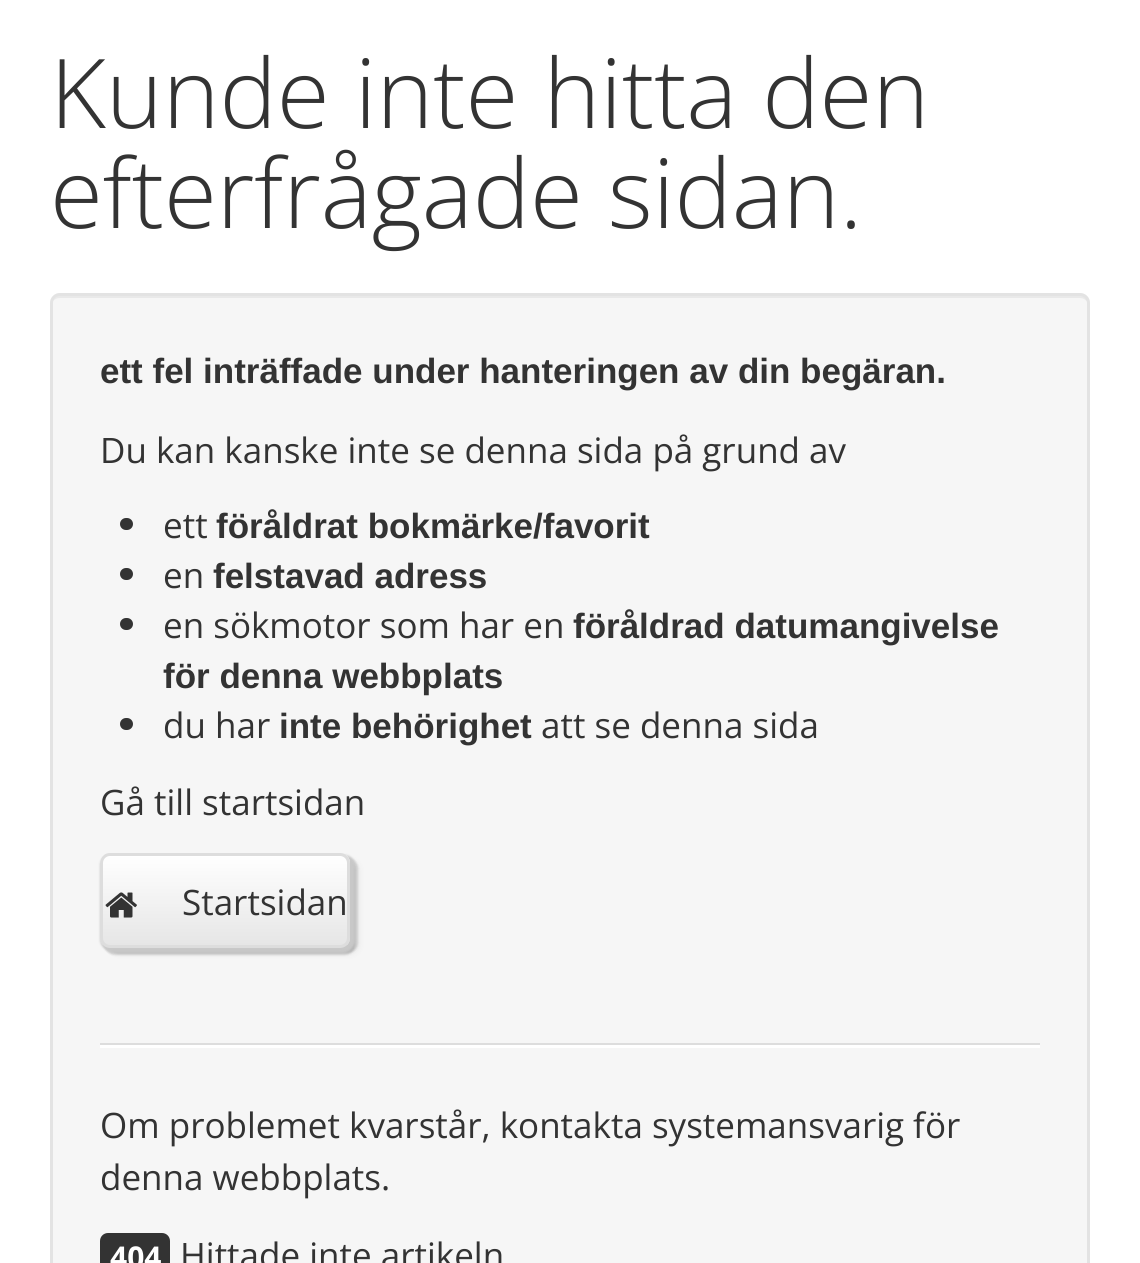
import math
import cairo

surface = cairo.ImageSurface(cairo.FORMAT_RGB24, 1140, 1263)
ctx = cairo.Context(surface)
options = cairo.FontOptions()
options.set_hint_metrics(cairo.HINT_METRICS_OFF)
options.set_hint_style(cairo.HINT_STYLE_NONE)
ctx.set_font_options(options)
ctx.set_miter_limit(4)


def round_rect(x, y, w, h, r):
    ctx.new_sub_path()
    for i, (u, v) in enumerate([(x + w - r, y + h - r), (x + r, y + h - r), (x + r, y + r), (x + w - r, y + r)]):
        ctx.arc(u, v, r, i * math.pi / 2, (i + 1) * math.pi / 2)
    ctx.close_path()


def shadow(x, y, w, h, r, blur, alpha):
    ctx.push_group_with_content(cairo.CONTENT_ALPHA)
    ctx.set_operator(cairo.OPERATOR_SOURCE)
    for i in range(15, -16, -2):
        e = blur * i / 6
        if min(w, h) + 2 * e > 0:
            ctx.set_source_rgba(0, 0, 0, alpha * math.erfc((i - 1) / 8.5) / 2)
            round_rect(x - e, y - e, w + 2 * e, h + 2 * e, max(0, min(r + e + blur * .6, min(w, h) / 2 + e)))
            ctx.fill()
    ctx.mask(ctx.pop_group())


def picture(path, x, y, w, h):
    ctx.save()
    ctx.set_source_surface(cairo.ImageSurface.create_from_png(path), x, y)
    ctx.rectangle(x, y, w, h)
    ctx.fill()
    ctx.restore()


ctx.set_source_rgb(1, 1, 1)
ctx.paint()
ctx.select_font_face("Open Sans Light")
ctx.set_font_size(96.25)
ctx.set_source_rgb(0.2, 0.2, 0.2)
ctx.move_to(50, 128)
ctx.show_text("Kunde inte hitta den")
ctx.move_to(50, 228)
ctx.show_text("efterfrågade sidan.")
ctx.set_source_rgb(0.961, 0.961, 0.961)
round_rect(50, 293, 1040, 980, 10)
ctx.fill()
ctx.set_source_rgb(0.914, 0.914, 0.914)
ctx.new_path()
ctx.move_to(60, 298)
ctx.line_to(1080, 298)
ctx.curve_to(1084, 298, 1088, 301, 1088, 305)
ctx.line_to(1088, 303)
ctx.curve_to(1088, 299, 1084, 295, 1080, 295)
ctx.line_to(61, 295)
ctx.curve_to(57, 295, 54, 298, 53, 301)
ctx.curve_to(55, 299, 57, 298, 60, 298)
ctx.close_path()
ctx.fill()
round_rect(51.5, 294.5, 1037, 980, 8.5)
ctx.set_source_rgb(0.89, 0.89, 0.89)
ctx.set_line_width(3)
ctx.stroke()
ctx.select_font_face("Liberation Sans", cairo.FONT_SLANT_NORMAL, cairo.FONT_WEIGHT_BOLD)
ctx.set_font_size(35)
ctx.set_source_rgb(0.2, 0.2, 0.2)
ctx.move_to(100, 383)
ctx.show_text("ett fel inträffade under hanteringen av din begäran.")
ctx.select_font_face("Open Sans")
ctx.move_to(100, 463)
ctx.show_text("Du kan kanske inte se denna sida på grund av")
round_rect(120, 518, 13, 12, 6)
ctx.fill()
ctx.move_to(163, 538)
ctx.show_text("ett")
ctx.select_font_face("Liberation Sans", cairo.FONT_SLANT_NORMAL, cairo.FONT_WEIGHT_BOLD)
ctx.move_to(216, 538)
ctx.show_text("föråldrat bokmärke/favorit")
round_rect(120, 568, 13, 12, 6)
ctx.fill()
ctx.select_font_face("Open Sans")
ctx.move_to(163, 588)
ctx.show_text("en")
ctx.select_font_face("Liberation Sans", cairo.FONT_SLANT_NORMAL, cairo.FONT_WEIGHT_BOLD)
ctx.move_to(213, 588)
ctx.show_text("felstavad adress")
round_rect(120, 618, 13, 12, 6)
ctx.fill()
ctx.select_font_face("Open Sans")
ctx.move_to(163, 638)
ctx.show_text("en sökmotor som har en")
ctx.select_font_face("Liberation Sans", cairo.FONT_SLANT_NORMAL, cairo.FONT_WEIGHT_BOLD)
ctx.move_to(573, 638)
ctx.show_text("föråldrad datumangivelse")
ctx.move_to(163, 688)
ctx.show_text("för denna webbplats")
round_rect(120, 718, 13, 12, 6)
ctx.fill()
ctx.select_font_face("Open Sans")
ctx.move_to(163, 738)
ctx.show_text("du har")
ctx.select_font_face("Liberation Sans", cairo.FONT_SLANT_NORMAL, cairo.FONT_WEIGHT_BOLD)
ctx.move_to(279, 738)
ctx.show_text("inte behörighet")
ctx.select_font_face("Open Sans")
ctx.move_to(541, 738)
ctx.show_text("att se denna sida")
ctx.move_to(100, 815)
ctx.show_text("Gå till startsidan")
ctx.set_source_rgb(0.824, 0.824, 0.824)
shadow(110, 860, 250, 95, 10, 2.5, 0.3)
ctx.set_source_rgb(0.314, 0.314, 0.314)
shadow(105, 860, 250, 95, 10, 1, 0.2)
shadow(108, 858, 250, 95, 10, 1, 0.2)
ctx.set_source_rgb(0.784, 0.784, 0.784)
shadow(103, 858, 250, 95, 10, 1, 0.9)
shadow(105, 855, 250, 95, 10, 1, 0.9)
shadow(100, 855, 250, 95, 10, 1, 0.9)
ctx.save()
round_rect(100, 853, 250, 95, 10)
ctx.clip()
gradient = cairo.LinearGradient(225, 855, 225, 945)
gradient.add_color_stop_rgba(0, 1, 1, 1, 1)
gradient.add_color_stop_rgba(1, 0.902, 0.902, 0.902, 1)
ctx.set_source(gradient)
ctx.rectangle(100, 855, 250, 90)
ctx.fill()
ctx.restore()
round_rect(101.5, 854.5, 247, 92, 8.5)
ctx.set_source_rgb(0.867, 0.867, 0.867)
ctx.stroke()
picture("img1.png", 105, 892, 32, 26)
ctx.set_source_rgb(0.2, 0.2, 0.2)
ctx.move_to(182, 915)
ctx.show_text("Startsidan")
ctx.set_source_rgb(0.867, 0.867, 0.867)
ctx.rectangle(100, 1043, 940, 2)
ctx.fill()
ctx.set_source_rgb(1, 1, 1)
ctx.rectangle(100, 1045, 940, 3)
ctx.fill()
ctx.set_source_rgb(0.2, 0.2, 0.2)
ctx.move_to(100, 1138)
ctx.show_text("Om problemet kvarstår, kontakta systemansvarig för")
ctx.move_to(100, 1190)
ctx.show_text("denna webbplats.")
round_rect(100, 1233, 70, 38, 8)
ctx.fill()
ctx.select_font_face("Open Sans", cairo.FONT_SLANT_NORMAL, cairo.FONT_WEIGHT_BOLD)
ctx.set_font_size(30)
ctx.set_source_rgb(1, 1, 1)
ctx.move_to(110, 1268)
ctx.show_text("404")
ctx.select_font_face("Open Sans")
ctx.set_font_size(35)
ctx.set_source_rgb(0.2, 0.2, 0.2)
ctx.move_to(180, 1268)
ctx.show_text("Hittade inte artikeln")
surface.write_to_png("page.png")
